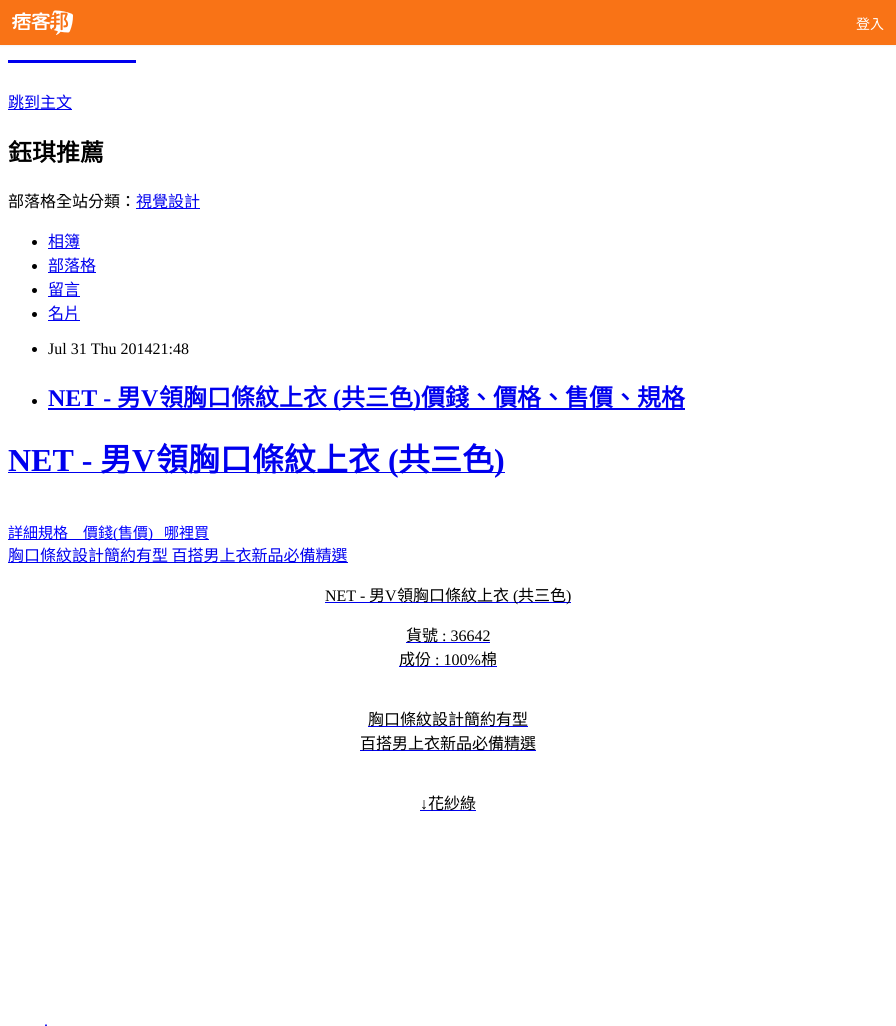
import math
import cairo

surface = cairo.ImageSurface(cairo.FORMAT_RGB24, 896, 1026)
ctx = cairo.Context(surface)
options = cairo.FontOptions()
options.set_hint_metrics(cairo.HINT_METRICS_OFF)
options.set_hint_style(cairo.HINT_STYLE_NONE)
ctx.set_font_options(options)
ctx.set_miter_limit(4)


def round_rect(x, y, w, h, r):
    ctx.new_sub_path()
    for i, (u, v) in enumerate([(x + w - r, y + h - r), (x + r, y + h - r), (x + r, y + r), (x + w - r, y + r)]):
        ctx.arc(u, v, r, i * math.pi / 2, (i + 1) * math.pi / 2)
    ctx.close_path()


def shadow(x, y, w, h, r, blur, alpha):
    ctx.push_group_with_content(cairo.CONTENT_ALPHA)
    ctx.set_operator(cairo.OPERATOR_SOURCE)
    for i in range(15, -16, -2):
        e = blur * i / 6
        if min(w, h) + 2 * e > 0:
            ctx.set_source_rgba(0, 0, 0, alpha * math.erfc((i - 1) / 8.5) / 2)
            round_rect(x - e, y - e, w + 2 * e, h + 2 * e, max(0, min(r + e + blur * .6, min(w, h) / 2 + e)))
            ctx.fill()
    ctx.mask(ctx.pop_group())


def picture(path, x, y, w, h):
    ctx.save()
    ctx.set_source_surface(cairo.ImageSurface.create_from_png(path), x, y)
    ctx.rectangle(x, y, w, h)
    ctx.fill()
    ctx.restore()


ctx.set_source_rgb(1, 1, 1)
ctx.paint()
ctx.set_source_rgb(0, 0, 0)
shadow(0, 1, 896, 45, 0, 1, 0.05)
ctx.set_source_rgb(0.976, 0.451, 0.086)
ctx.rectangle(0, 0, 896, 45)
ctx.fill()
picture("img1.png", 12, 10, 61, 25)
ctx.select_font_face("Noto Sans CJK TC")
ctx.set_font_size(14)
ctx.set_source_rgb(1, 1, 1)
ctx.move_to(856, 29)
ctx.show_text("登入")
ctx.set_source_rgb(0, 0, 0.933)
ctx.rectangle(8, 60, 128, 3)
ctx.fill()
ctx.rectangle(8, 109, 64, 1)
ctx.fill()
ctx.set_font_size(16)
ctx.move_to(8, 108)
ctx.show_text("跳到主文")
ctx.select_font_face("Noto Sans CJK TC", cairo.FONT_SLANT_NORMAL, cairo.FONT_WEIGHT_BOLD)
ctx.set_font_size(24)
ctx.set_source_rgb(0, 0, 0)
ctx.move_to(8, 161)
ctx.show_text("鈺琪推薦")
ctx.select_font_face("Noto Sans CJK TC")
ctx.set_font_size(16)
ctx.move_to(8, 207)
ctx.show_text("部落格全站分類：")
ctx.set_source_rgb(0, 0, 0.933)
ctx.rectangle(136, 208, 64, 1)
ctx.fill()
ctx.move_to(136, 207)
ctx.show_text("視覺設計")
ctx.set_source_rgb(0, 0, 0)
ctx.new_path()
ctx.arc(34.5, 242.5, 2.5, 0, 2 * math.pi)
ctx.fill()
ctx.set_source_rgb(0, 0, 0.933)
ctx.rectangle(48, 248, 32, 1)
ctx.fill()
ctx.move_to(48, 247)
ctx.show_text("相簿")
ctx.set_source_rgb(0, 0, 0)
ctx.new_path()
ctx.arc(34.5, 266.5, 2.5, 0, 2 * math.pi)
ctx.fill()
ctx.set_source_rgb(0, 0, 0.933)
ctx.rectangle(48, 272, 48, 1)
ctx.fill()
ctx.move_to(48, 271)
ctx.show_text("部落格")
ctx.set_source_rgb(0, 0, 0)
ctx.new_path()
ctx.arc(34.5, 290.5, 2.5, 0, 2 * math.pi)
ctx.fill()
ctx.set_source_rgb(0, 0, 0.933)
ctx.rectangle(48, 296, 32, 1)
ctx.fill()
ctx.move_to(48, 295)
ctx.show_text("留言")
ctx.set_source_rgb(0, 0, 0)
ctx.new_path()
ctx.arc(34.5, 314.5, 2.5, 0, 2 * math.pi)
ctx.fill()
ctx.set_source_rgb(0, 0, 0.933)
ctx.rectangle(48, 320, 32, 1)
ctx.fill()
ctx.move_to(48, 319)
ctx.show_text("名片")
ctx.set_source_rgb(0, 0, 0)
ctx.new_path()
ctx.arc(34.5, 349.5, 2.5, 0, 2 * math.pi)
ctx.fill()
ctx.select_font_face("Liberation Serif")
ctx.move_to(48, 354)
ctx.show_text("Jul 31 Thu 201421:48")
ctx.new_path()
ctx.arc(34.5, 401.5, 2.5, 0, 2 * math.pi)
ctx.fill()
ctx.select_font_face("Liberation Serif", cairo.FONT_SLANT_NORMAL, cairo.FONT_WEIGHT_BOLD)
ctx.set_font_size(24)
ctx.set_source_rgb(0, 0, 0.933)
ctx.move_to(48, 406)
ctx.show_text("NET -")
ctx.select_font_face("Noto Sans CJK TC", cairo.FONT_SLANT_NORMAL, cairo.FONT_WEIGHT_BOLD)
ctx.move_to(117, 406)
ctx.show_text("男")
ctx.select_font_face("Liberation Serif", cairo.FONT_SLANT_NORMAL, cairo.FONT_WEIGHT_BOLD)
ctx.move_to(141, 406)
ctx.show_text("V")
ctx.select_font_face("Noto Sans CJK TC", cairo.FONT_SLANT_NORMAL, cairo.FONT_WEIGHT_BOLD)
ctx.move_to(159, 406)
ctx.show_text("領胸口條紋上衣")
ctx.rectangle(48, 408, 637, 2)
ctx.fill()
ctx.select_font_face("Liberation Serif", cairo.FONT_SLANT_NORMAL, cairo.FONT_WEIGHT_BOLD)
ctx.move_to(333, 406)
ctx.show_text("(")
ctx.select_font_face("Noto Sans CJK TC", cairo.FONT_SLANT_NORMAL, cairo.FONT_WEIGHT_BOLD)
ctx.move_to(341, 406)
ctx.show_text("共三色")
ctx.select_font_face("Liberation Serif", cairo.FONT_SLANT_NORMAL, cairo.FONT_WEIGHT_BOLD)
ctx.move_to(413, 406)
ctx.show_text(")")
ctx.select_font_face("Noto Sans CJK TC", cairo.FONT_SLANT_NORMAL, cairo.FONT_WEIGHT_BOLD)
ctx.move_to(421, 406)
ctx.show_text("價錢、價格、售價、規格")
ctx.select_font_face("Liberation Serif", cairo.FONT_SLANT_NORMAL, cairo.FONT_WEIGHT_BOLD)
ctx.set_font_size(32)
ctx.move_to(8, 471)
ctx.show_text("NET -")
ctx.rectangle(8, 472, 497, 1)
ctx.fill()
ctx.select_font_face("Noto Sans CJK TC", cairo.FONT_SLANT_NORMAL, cairo.FONT_WEIGHT_BOLD)
ctx.move_to(100, 471)
ctx.show_text("男")
ctx.select_font_face("Liberation Serif", cairo.FONT_SLANT_NORMAL, cairo.FONT_WEIGHT_BOLD)
ctx.move_to(132, 471)
ctx.show_text("V")
ctx.select_font_face("Noto Sans CJK TC", cairo.FONT_SLANT_NORMAL, cairo.FONT_WEIGHT_BOLD)
ctx.move_to(156, 471)
ctx.show_text("領胸口條紋上衣")
ctx.select_font_face("Liberation Serif", cairo.FONT_SLANT_NORMAL, cairo.FONT_WEIGHT_BOLD)
ctx.move_to(388, 471)
ctx.show_text("(")
ctx.select_font_face("Noto Sans CJK TC", cairo.FONT_SLANT_NORMAL, cairo.FONT_WEIGHT_BOLD)
ctx.move_to(398, 471)
ctx.show_text("共三色")
ctx.select_font_face("Liberation Serif", cairo.FONT_SLANT_NORMAL, cairo.FONT_WEIGHT_BOLD)
ctx.move_to(494, 471)
ctx.show_text(")")
ctx.rectangle(8, 539, 201, 1)
ctx.fill()
ctx.select_font_face("Noto Sans CJK TC")
ctx.set_font_size(15)
ctx.set_source_rgb(0, 0, 1)
ctx.move_to(8, 538)
ctx.show_text("詳細規格")
ctx.move_to(83, 538)
ctx.show_text("價錢")
ctx.select_font_face("Liberation Serif")
ctx.move_to(113, 538)
ctx.show_text("(")
ctx.select_font_face("Noto Sans CJK TC")
ctx.move_to(118, 538)
ctx.show_text("售價")
ctx.select_font_face("Liberation Serif")
ctx.move_to(148, 538)
ctx.show_text(")")
ctx.select_font_face("Noto Sans CJK TC")
ctx.move_to(164, 538)
ctx.show_text("哪裡買")
ctx.set_source_rgb(0, 0, 0.933)
ctx.rectangle(8, 562, 340, 1)
ctx.fill()
ctx.set_font_size(16)
ctx.move_to(8, 561)
ctx.show_text("胸口條紋設計簡約有型 百搭男上衣新品必備精選")
ctx.select_font_face("Liberation Serif")
ctx.set_source_rgb(0, 0, 0)
ctx.move_to(325, 601)
ctx.show_text("NET -")
ctx.set_source_rgb(0, 0, 0.933)
ctx.rectangle(325, 602, 246, 1)
ctx.fill()
ctx.select_font_face("Noto Sans CJK TC")
ctx.set_source_rgb(0, 0, 0)
ctx.move_to(369, 601)
ctx.show_text("男")
ctx.select_font_face("Liberation Serif")
ctx.move_to(385, 601)
ctx.show_text("V")
ctx.select_font_face("Noto Sans CJK TC")
ctx.move_to(397, 601)
ctx.show_text("領胸口條紋上衣")
ctx.select_font_face("Liberation Serif")
ctx.move_to(513, 601)
ctx.show_text("(")
ctx.select_font_face("Noto Sans CJK TC")
ctx.move_to(518, 601)
ctx.show_text("共三色")
ctx.select_font_face("Liberation Serif")
ctx.move_to(566, 601)
ctx.show_text(")")
ctx.set_source_rgb(0, 0, 0.933)
ctx.rectangle(406, 642, 84, 1)
ctx.fill()
ctx.select_font_face("Noto Sans CJK TC")
ctx.set_source_rgb(0, 0, 0)
ctx.move_to(406, 641)
ctx.show_text("貨號")
ctx.select_font_face("Liberation Serif")
ctx.move_to(442, 641)
ctx.show_text(": 36642")
ctx.set_source_rgb(0, 0, 0.933)
ctx.rectangle(399, 666, 98, 1)
ctx.fill()
ctx.select_font_face("Noto Sans CJK TC")
ctx.set_source_rgb(0, 0, 0)
ctx.move_to(399, 665)
ctx.show_text("成份")
ctx.select_font_face("Liberation Serif")
ctx.move_to(435, 665)
ctx.show_text(": 100%")
ctx.select_font_face("Noto Sans CJK TC")
ctx.move_to(481, 665)
ctx.show_text("棉")
ctx.set_source_rgb(0, 0, 0.933)
ctx.rectangle(368, 726, 160, 1)
ctx.fill()
ctx.set_source_rgb(0, 0, 0)
ctx.move_to(368, 725)
ctx.show_text("胸口條紋設計簡約有型")
ctx.set_source_rgb(0, 0, 0.933)
ctx.rectangle(360, 750, 176, 1)
ctx.fill()
ctx.set_source_rgb(0, 0, 0)
ctx.move_to(360, 749)
ctx.show_text("百搭男上衣新品必備精選")
ctx.select_font_face("Liberation Serif")
ctx.move_to(420, 809)
ctx.show_text("↓")
ctx.set_source_rgb(0, 0, 0.933)
ctx.rectangle(420, 810, 56, 1)
ctx.fill()
ctx.select_font_face("Noto Sans CJK TC")
ctx.set_source_rgb(0, 0, 0)
ctx.move_to(428, 809)
ctx.show_text("花紗綠")
ctx.select_font_face("Liberation Serif")
ctx.set_source_rgb(0, 0, 0.933)
ctx.move_to(44, 1026)
ctx.show_text(".")
surface.write_to_png("page.png")
